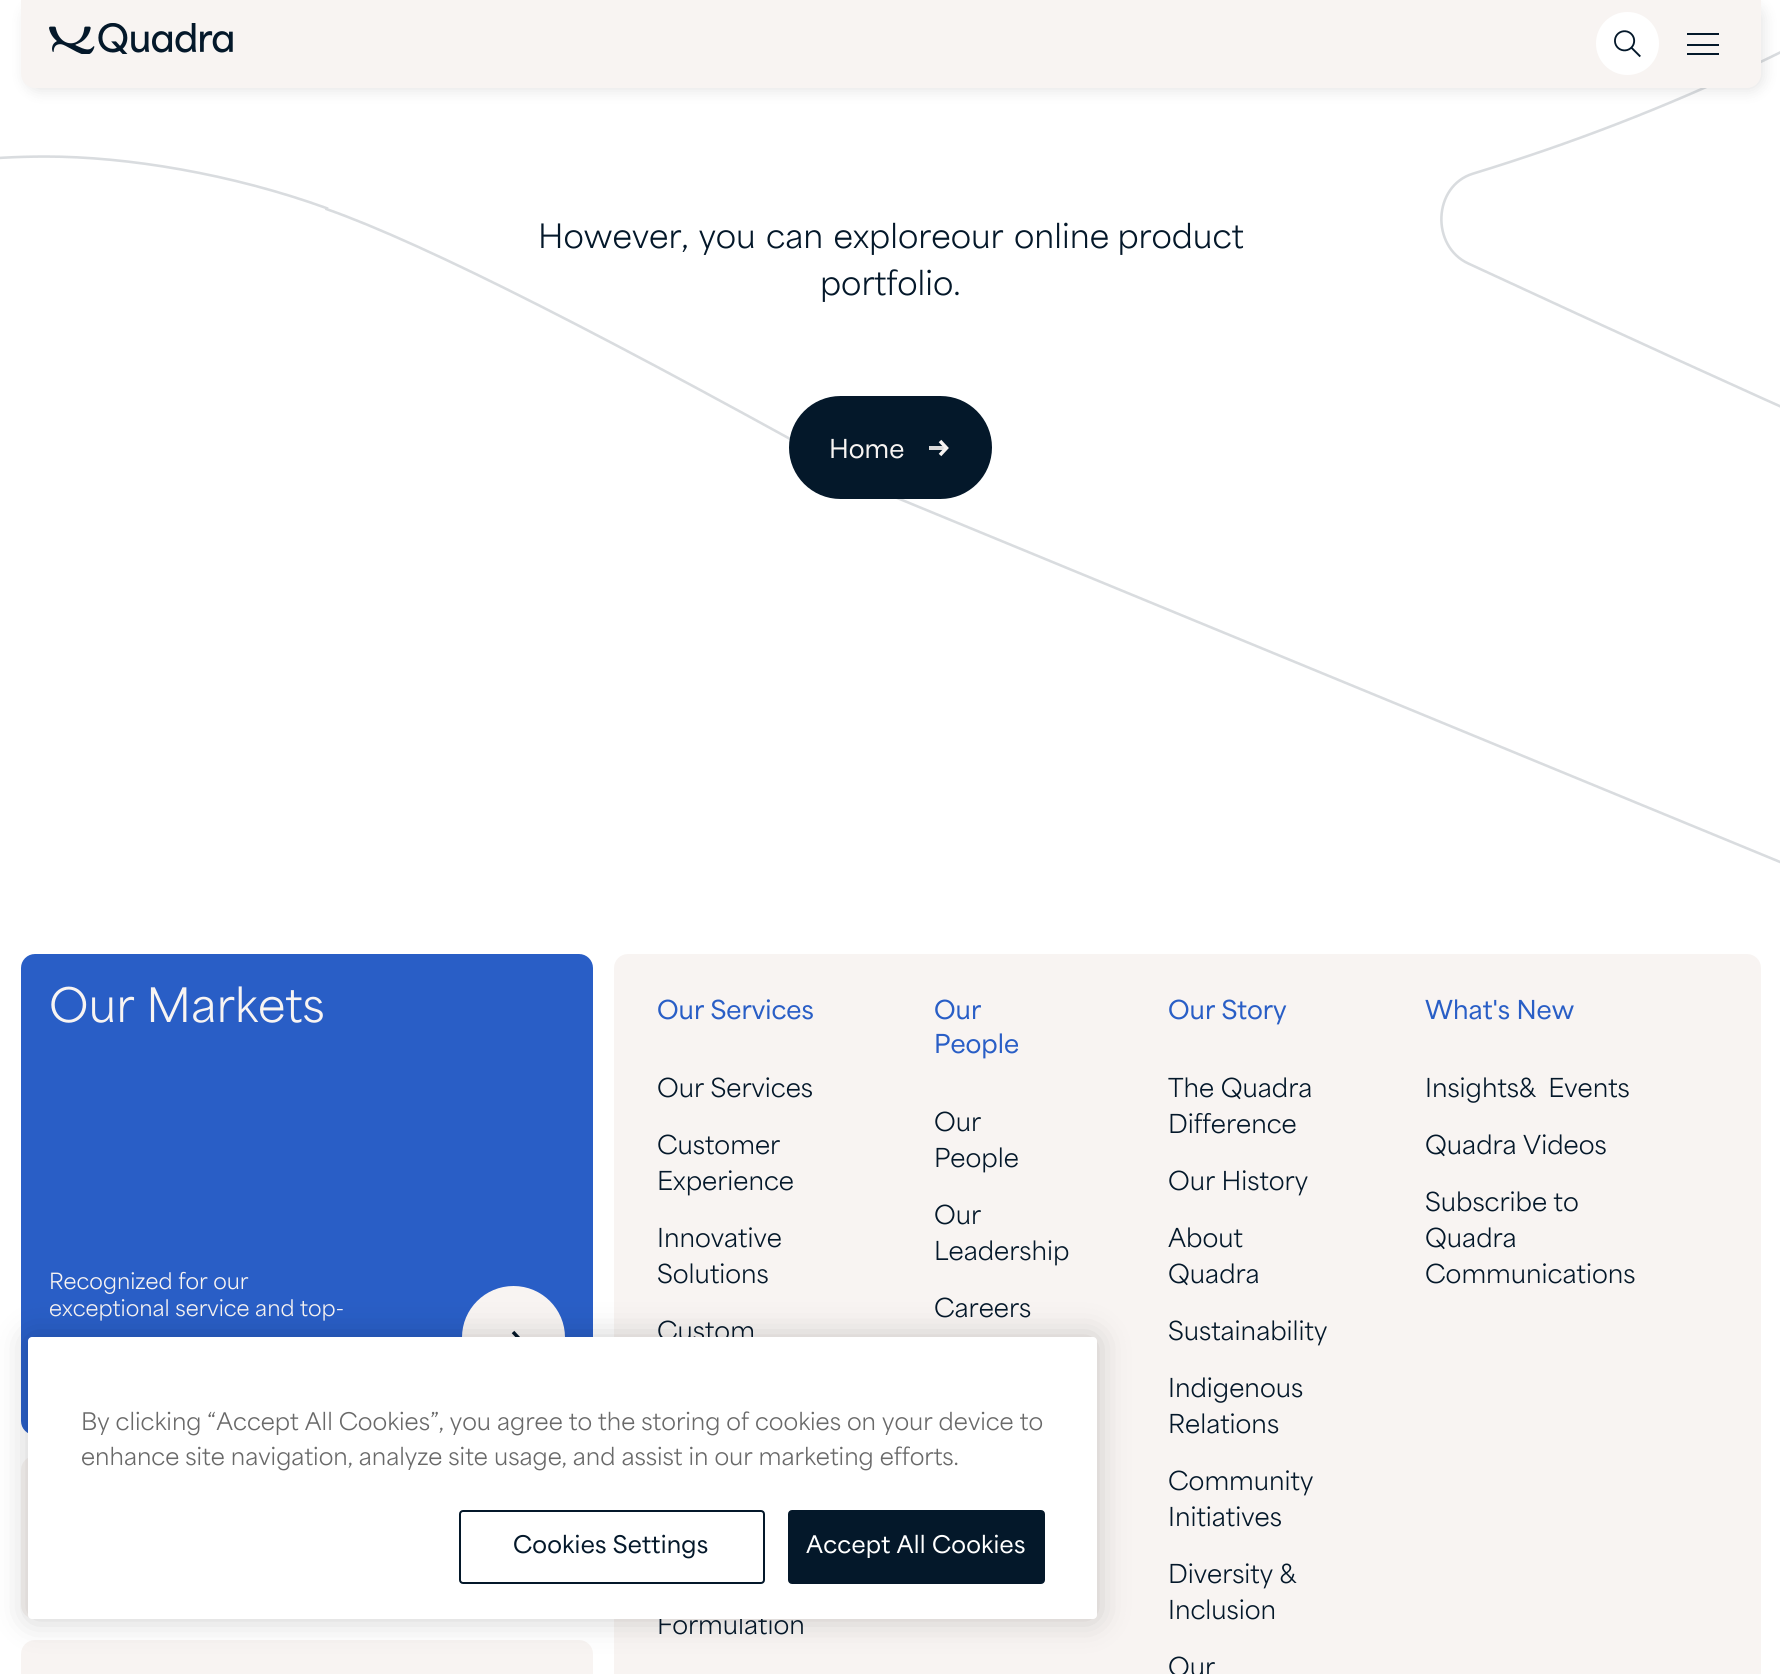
import math
import cairo

surface = cairo.ImageSurface(cairo.FORMAT_RGB24, 1780, 1674)
ctx = cairo.Context(surface)
options = cairo.FontOptions()
options.set_hint_metrics(cairo.HINT_METRICS_OFF)
options.set_hint_style(cairo.HINT_STYLE_NONE)
ctx.set_font_options(options)
ctx.set_miter_limit(4)


def spaced_text(x, y, s, letter, word):
    ctx.move_to(x, y)
    for ch in s:
        ctx.show_text(ch)
        ctx.rel_move_to(letter + word * (ch == ' '), 0)


def round_rect(x, y, w, h, r):
    ctx.new_sub_path()
    for i, (u, v) in enumerate([(x + w - r, y + h - r), (x + r, y + h - r), (x + r, y + r), (x + w - r, y + r)]):
        ctx.arc(u, v, r, i * math.pi / 2, (i + 1) * math.pi / 2)
    ctx.close_path()


def shadow(x, y, w, h, r, blur, alpha):
    ctx.push_group_with_content(cairo.CONTENT_ALPHA)
    ctx.set_operator(cairo.OPERATOR_SOURCE)
    for i in range(15, -16, -2):
        e = blur * i / 6
        if min(w, h) + 2 * e > 0:
            ctx.set_source_rgba(0, 0, 0, alpha * math.erfc((i - 1) / 8.5) / 2)
            round_rect(x - e, y - e, w + 2 * e, h + 2 * e, max(0, min(r + e + blur * .6, min(w, h) / 2 + e)))
            ctx.fill()
    ctx.mask(ctx.pop_group())


def picture(path, x, y, w, h):
    ctx.save()
    ctx.set_source_surface(cairo.ImageSurface.create_from_png(path), x, y)
    ctx.rectangle(x, y, w, h)
    ctx.fill()
    ctx.restore()


ctx.set_source_rgb(1, 1, 1)
ctx.paint()
picture("img1.png", 0, 51, 1780, 813)
ctx.set_source_rgb(0, 0, 0)
shadow(25, 4, 1739, 87, 14, 7, 0.1)
ctx.set_source_rgb(0.969, 0.957, 0.949)
ctx.new_path()
ctx.move_to(21, 0)
ctx.line_to(1761, 0)
ctx.line_to(1761, 74)
ctx.curve_to(1761, 81.5, 1754.5, 88, 1747, 88)
ctx.line_to(35, 88)
ctx.curve_to(27.5, 88, 21, 81.5, 21, 74)
ctx.close_path()
ctx.fill()
picture("img2.png", 49, 23, 184, 31)
ctx.set_source_rgb(1, 1, 1)
ctx.arc(1627.5, 43.5, 31.5, 0, 2 * math.pi)
ctx.fill()
picture("img3.png", 1614, 30, 27, 28)
ctx.set_source_rgb(0.016, 0.094, 0.165)
ctx.rectangle(1687, 33, 32, 2)
ctx.fill()
ctx.rectangle(1687, 44, 32, 2)
ctx.fill()
ctx.rectangle(1687, 53, 32, 2)
ctx.fill()
ctx.select_font_face("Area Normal")
ctx.set_font_size(31.5)
spaced_text(538, 248, "However, you can exploreour", 0, 2)
ctx.move_to(1014, 248)
ctx.show_text("online product")
ctx.move_to(820, 295)
ctx.show_text("portfolio.")
round_rect(789, 396, 203, 103, 51.5)
ctx.fill()
ctx.select_font_face("Area Normal SemiBold")
ctx.set_font_size(24.5)
ctx.set_source_rgb(0.969, 0.957, 0.949)
ctx.move_to(829, 458)
ctx.show_text("Home")
ctx.new_path()
ctx.move_to(940, 455)
ctx.line_to(946.5, 448)
ctx.line_to(940, 441)
ctx.set_line_width(3.5)
ctx.stroke()
ctx.set_source_rgba(0.969, 0.957, 0.949, 0.88)
ctx.rectangle(929, 446, 17, 4)
ctx.fill()
ctx.set_source_rgb(0.161, 0.369, 0.776)
round_rect(21, 954, 572, 481, 14)
ctx.fill()
ctx.select_font_face("Area Normal")
ctx.set_font_size(44.5)
ctx.set_source_rgb(0.969, 0.957, 0.949)
ctx.move_to(49, 1022)
ctx.show_text("Our Markets")
ctx.set_font_size(21)
ctx.move_to(49, 1289)
ctx.show_text("Recognized for our")
ctx.move_to(49, 1316)
ctx.show_text("exceptional service and top-")
round_rect(462, 1286, 103, 104, 51.5)
ctx.fill()
ctx.new_path()
ctx.move_to(513, 1346)
ctx.line_to(519.5, 1339)
ctx.line_to(513, 1332)
ctx.set_source_rgb(0.016, 0.094, 0.165)
ctx.stroke()
ctx.set_source_rgb(0.969, 0.957, 0.949)
round_rect(21, 1456, 572, 163, 14)
ctx.fill()
round_rect(21, 1640, 572, 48, 14)
ctx.fill()
round_rect(614, 954, 1147, 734, 14)
ctx.fill()
ctx.select_font_face("Area Normal SemiBold")
ctx.set_font_size(24.5)
ctx.set_source_rgb(0.161, 0.369, 0.776)
ctx.move_to(657, 1019)
ctx.show_text("Our Services")
ctx.select_font_face("Area Normal")
ctx.set_source_rgb(0.016, 0.094, 0.165)
ctx.move_to(657, 1097)
ctx.show_text("Our Services")
ctx.move_to(657, 1154)
ctx.show_text("Customer")
ctx.move_to(657, 1190)
ctx.show_text("Experience")
ctx.move_to(657, 1247)
ctx.show_text("Innovative")
ctx.move_to(657, 1283)
ctx.show_text("Solutions")
ctx.move_to(657, 1340)
ctx.show_text("Custom")
ctx.move_to(657, 1634)
ctx.show_text("Formulation")
ctx.select_font_face("Area Normal SemiBold")
ctx.set_source_rgb(0.161, 0.369, 0.776)
ctx.move_to(934, 1019)
ctx.show_text("Our")
ctx.move_to(934, 1053)
ctx.show_text("People")
ctx.select_font_face("Area Normal")
ctx.set_source_rgb(0.016, 0.094, 0.165)
ctx.move_to(934, 1131)
ctx.show_text("Our")
ctx.move_to(934, 1167)
ctx.show_text("People")
ctx.move_to(934, 1224)
ctx.show_text("Our")
ctx.move_to(934, 1260)
ctx.show_text("Leadership")
ctx.move_to(934, 1317)
ctx.show_text("Careers")
ctx.select_font_face("Area Normal SemiBold")
ctx.set_source_rgb(0.161, 0.369, 0.776)
ctx.move_to(1168, 1019)
ctx.show_text("Our Story")
ctx.select_font_face("Area Normal")
ctx.set_source_rgb(0.016, 0.094, 0.165)
ctx.move_to(1168, 1097)
ctx.show_text("The Quadra")
ctx.move_to(1168, 1133)
ctx.show_text("Difference")
ctx.move_to(1168, 1190)
ctx.show_text("Our History")
ctx.move_to(1168, 1247)
ctx.show_text("About")
ctx.move_to(1168, 1283)
ctx.show_text("Quadra")
ctx.move_to(1168, 1340)
ctx.show_text("Sustainability")
ctx.move_to(1168, 1397)
ctx.show_text("Indigenous")
ctx.move_to(1168, 1433)
ctx.show_text("Relations")
ctx.move_to(1168, 1490)
ctx.show_text("Community")
ctx.move_to(1168, 1526)
ctx.show_text("Initiatives")
ctx.move_to(1168, 1583)
ctx.show_text("Diversity &")
ctx.move_to(1168, 1619)
ctx.show_text("Inclusion")
ctx.move_to(1168, 1676)
ctx.show_text("Our")
ctx.select_font_face("Area Normal SemiBold")
ctx.set_source_rgb(0.161, 0.369, 0.776)
ctx.move_to(1425, 1019)
ctx.show_text("What's New")
ctx.select_font_face("Area Normal")
ctx.set_source_rgb(0.016, 0.094, 0.165)
spaced_text(1425, 1097, "Insights& Events", 0, 6)
ctx.move_to(1425, 1154)
ctx.show_text("Quadra Videos")
ctx.move_to(1425, 1211)
ctx.show_text("Subscribe to")
ctx.move_to(1425, 1247)
ctx.show_text("Quadra")
ctx.move_to(1425, 1283)
ctx.show_text("Communications")
ctx.set_source_rgb(0, 0, 0)
shadow(28, 1337, 1069, 282, 4, 16, 0.2)
ctx.set_source_rgb(1, 1, 1)
round_rect(28, 1337, 1069, 282, 4)
ctx.fill()
ctx.set_font_size(22.75)
ctx.set_source_rgb(0.412, 0.412, 0.412)
ctx.move_to(81, 1430)
ctx.show_text("By clicking “Accept All Cookies”, you agree to the storing of cookies on your device to")
ctx.move_to(81, 1465)
ctx.show_text("enhance site navigation, analyze site usage, and assist in our marketing efforts.")
round_rect(460, 1511, 304, 72, 3)
ctx.set_source_rgb(0.016, 0.094, 0.165)
ctx.set_line_width(2)
ctx.stroke()
ctx.select_font_face("Area Normal SemiBold")
spaced_text(513, 1553, "Cookies Settings", 0.25, 0)
round_rect(789, 1511, 255, 72, 3)
ctx.fill_preserve()
ctx.stroke()
ctx.set_source_rgb(1, 1, 1)
spaced_text(806, 1553, "Accept All Cookies", 0.25, 0)
surface.write_to_png("page.png")
